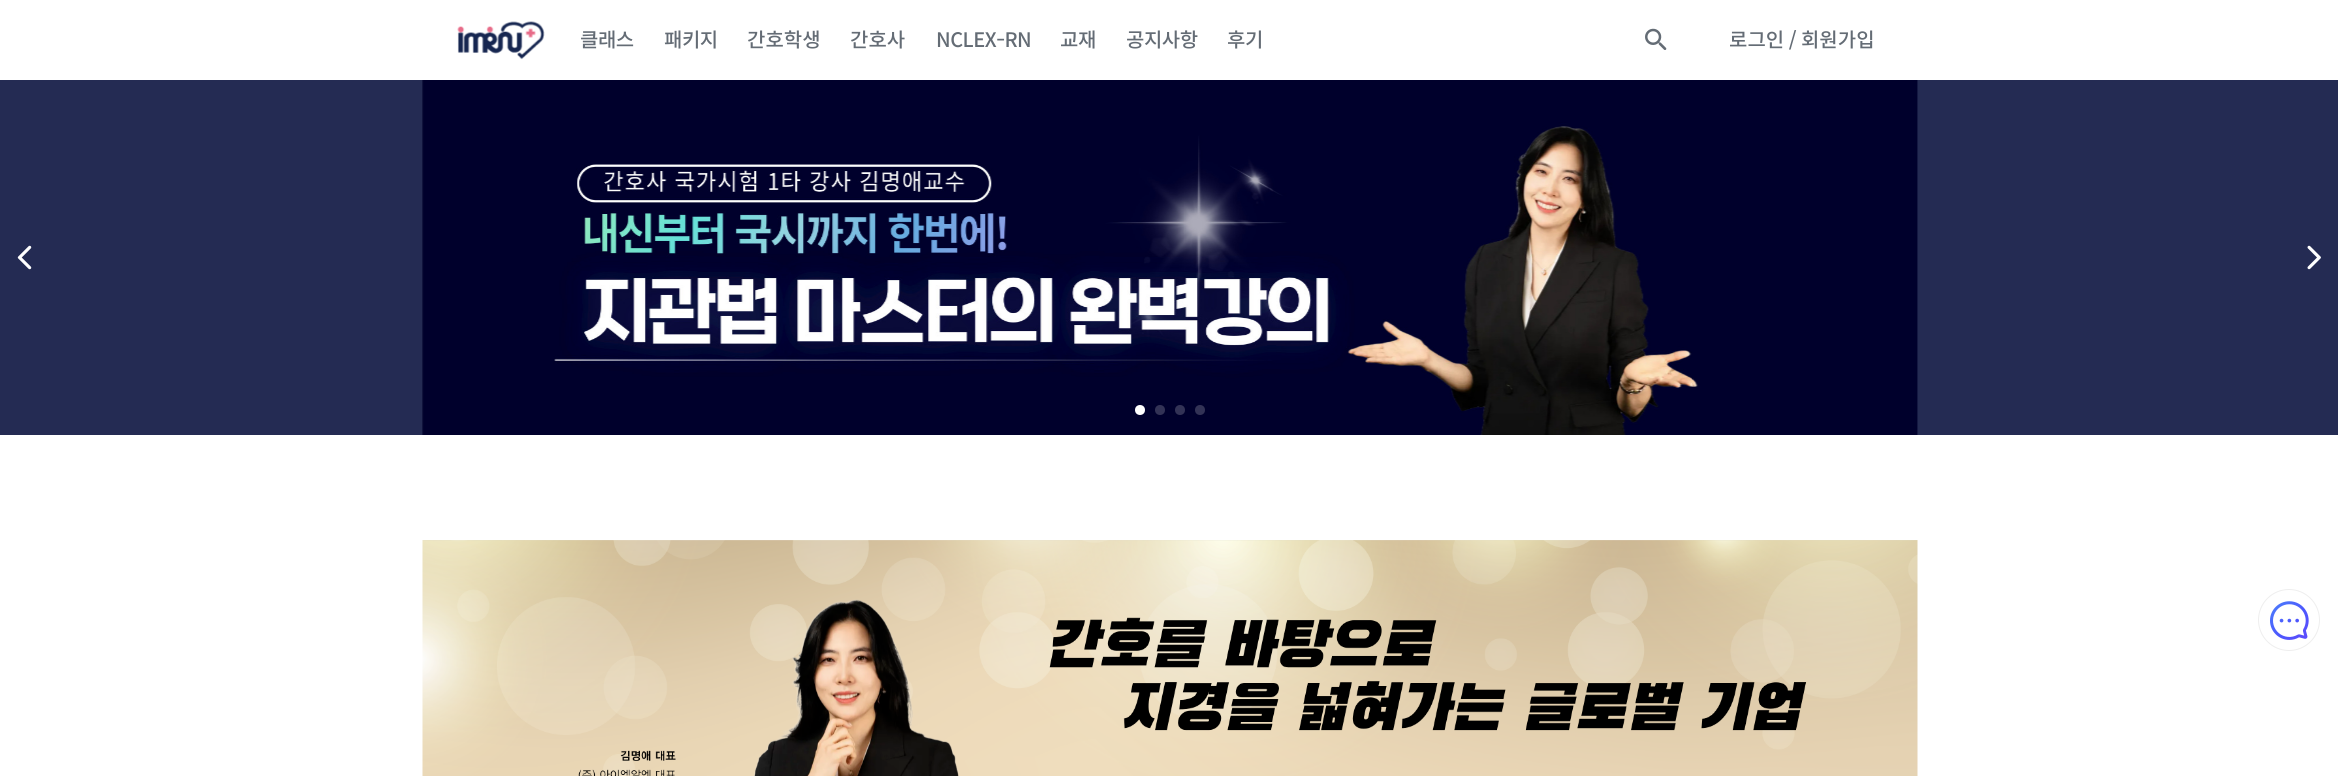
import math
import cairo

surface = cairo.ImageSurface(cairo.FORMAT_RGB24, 2338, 776)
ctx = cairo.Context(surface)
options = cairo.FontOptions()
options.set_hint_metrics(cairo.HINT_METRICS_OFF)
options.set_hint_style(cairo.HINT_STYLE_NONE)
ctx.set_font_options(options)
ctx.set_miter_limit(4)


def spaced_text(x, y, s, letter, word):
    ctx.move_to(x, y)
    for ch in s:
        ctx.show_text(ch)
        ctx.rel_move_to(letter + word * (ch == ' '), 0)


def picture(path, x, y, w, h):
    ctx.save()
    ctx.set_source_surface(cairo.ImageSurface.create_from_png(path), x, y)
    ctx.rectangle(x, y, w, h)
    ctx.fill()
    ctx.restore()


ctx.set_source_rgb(1, 1, 1)
ctx.paint()
picture("img1.png", 457, 21, 88, 39)
ctx.select_font_face("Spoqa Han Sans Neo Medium")
ctx.set_font_size(20)
ctx.set_source_rgb(0.392, 0.424, 0.459)
spaced_text(580, 47, "클래스", -0.5, 0)
spaced_text(664, 47, "패키지", -0.5, 0)
ctx.move_to(747, 47)
ctx.show_text("간호학생")
ctx.move_to(850, 47)
ctx.show_text("간호사")
spaced_text(936, 47, "NCLEX-RN", -0.5, 0)
spaced_text(1060, 47, "교재", -0.5, 0)
spaced_text(1126, 47, "공지사항", -0.5, 0)
spaced_text(1227, 47, "후기", -0.5, 0)
picture("img2.png", 1645, 28, 22, 22)
ctx.move_to(1729, 47)
ctx.show_text("로그인 / 회원가입")
ctx.set_source_rgb(0.141, 0.169, 0.325)
ctx.rectangle(0, 80, 2338, 355)
ctx.fill()
picture("img3.png", 422, 80, 1496, 355)
picture("img4.png", 17, 245, 15, 25)
picture("img5.png", 2307, 245, 14, 25)
ctx.set_source_rgb(1, 1, 1)
ctx.arc(1140, 410, 5, 0, 2 * math.pi)
ctx.fill()
ctx.set_source_rgb(0.2, 0.2, 0.337)
ctx.arc(1160, 410, 5, 0, 2 * math.pi)
ctx.fill()
ctx.arc(1180, 410, 5, 0, 2 * math.pi)
ctx.fill()
ctx.arc(1200, 410, 5, 0, 2 * math.pi)
ctx.fill()
picture("img6.png", 422, 540, 1496, 236)
ctx.arc(2289, 620, 30.5, 0, 2 * math.pi)
ctx.set_source_rgb(0.933, 0.933, 0.933)
ctx.set_line_width(1)
ctx.stroke()
picture("img7.png", 2270, 601, 39, 39)
surface.write_to_png("page.png")
